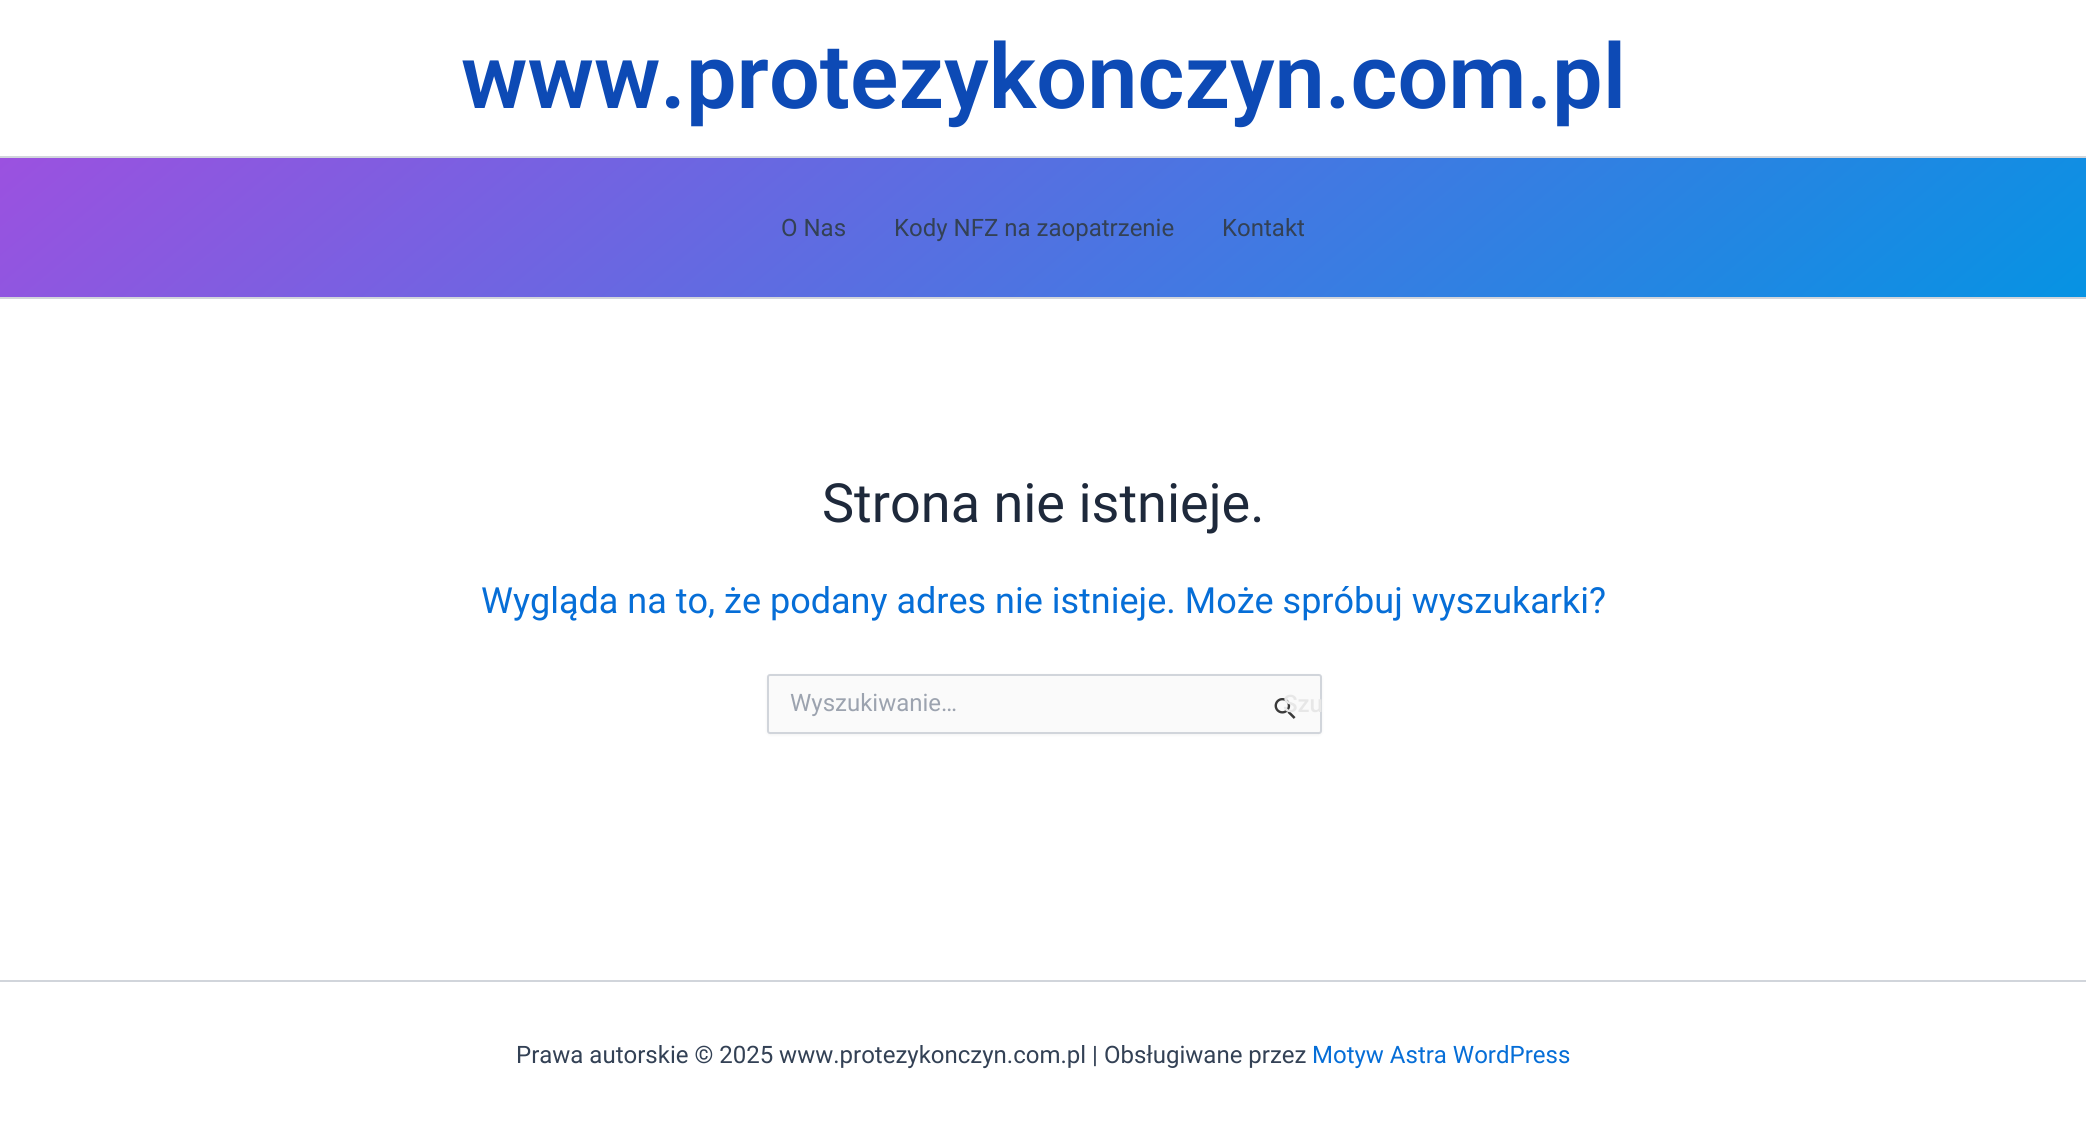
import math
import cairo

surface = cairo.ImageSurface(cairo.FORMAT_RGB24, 2086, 1130)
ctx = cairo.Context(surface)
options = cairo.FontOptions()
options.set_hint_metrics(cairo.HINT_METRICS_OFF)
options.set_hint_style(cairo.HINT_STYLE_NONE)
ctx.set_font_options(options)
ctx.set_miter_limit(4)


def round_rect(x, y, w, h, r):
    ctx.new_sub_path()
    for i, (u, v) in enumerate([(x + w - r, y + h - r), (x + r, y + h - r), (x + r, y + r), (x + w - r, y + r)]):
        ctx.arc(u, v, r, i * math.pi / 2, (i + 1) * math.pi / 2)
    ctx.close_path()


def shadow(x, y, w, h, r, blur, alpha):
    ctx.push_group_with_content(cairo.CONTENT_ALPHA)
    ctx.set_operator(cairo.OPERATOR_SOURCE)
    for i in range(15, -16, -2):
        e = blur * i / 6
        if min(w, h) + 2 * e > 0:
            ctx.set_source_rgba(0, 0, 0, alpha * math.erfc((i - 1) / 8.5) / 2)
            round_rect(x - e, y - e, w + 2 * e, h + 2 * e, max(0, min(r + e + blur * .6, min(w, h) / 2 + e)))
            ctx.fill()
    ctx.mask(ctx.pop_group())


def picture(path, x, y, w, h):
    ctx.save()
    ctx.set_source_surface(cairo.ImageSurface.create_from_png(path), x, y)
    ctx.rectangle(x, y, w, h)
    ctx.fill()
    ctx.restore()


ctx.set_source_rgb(1, 1, 1)
ctx.paint()
ctx.set_source_rgb(0.82, 0.835, 0.859)
ctx.rectangle(0, 156, 2086, 2)
ctx.fill()
ctx.select_font_face("Roboto SemiBold")
ctx.set_font_size(90)
ctx.set_source_rgb(0.051, 0.29, 0.71)
ctx.move_to(461, 108)
ctx.show_text("www.protezykonczyn.com.pl")
gradient = cairo.LinearGradient(1509, 782, 578, -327)
gradient.add_color_stop_rgba(0, 0.024, 0.576, 0.89, 1)
gradient.add_color_stop_rgba(1, 0.608, 0.318, 0.878, 1)
ctx.set_source(gradient)
ctx.rectangle(0, 158, 2086, 139)
ctx.fill()
ctx.set_source_rgb(0.82, 0.835, 0.859)
ctx.rectangle(0, 297, 2086, 2)
ctx.fill()
ctx.select_font_face("Roboto")
ctx.set_font_size(24)
ctx.set_source_rgb(0.2, 0.255, 0.333)
ctx.move_to(781, 236)
ctx.show_text("O Nas")
ctx.move_to(894, 236)
ctx.show_text("Kody NFZ na zaopatrzenie")
ctx.move_to(1222, 236)
ctx.show_text("Kontakt")
ctx.set_font_size(54)
ctx.set_source_rgb(0.118, 0.161, 0.231)
ctx.move_to(822, 522)
ctx.show_text("Strona nie istnieje.")
ctx.set_font_size(36)
ctx.set_source_rgb(0.024, 0.431, 0.843)
ctx.move_to(481, 613)
ctx.show_text("Wygląda na to, że podany adres nie istnieje. Może spróbuj wyszukarki?")
ctx.set_source_rgb(0, 0, 0)
shadow(767, 675, 555, 60, 3, 1.5, 0.05)
ctx.set_source_rgb(0.98, 0.98, 0.98)
round_rect(768, 675, 553, 58, 2)
ctx.fill_preserve()
ctx.set_source_rgb(0.82, 0.835, 0.859)
ctx.stroke()
ctx.set_font_size(24)
ctx.set_source_rgb(0.612, 0.639, 0.686)
ctx.move_to(790, 711)
ctx.show_text("Wyszukiwanie…")
picture("img1.png", 1274, 698, 22, 21)
ctx.select_font_face("Roboto Medium")
ctx.set_source_rgb(0.906, 0.906, 0.906)
ctx.move_to(1283, 712)
ctx.show_text("Szu")
ctx.set_source_rgb(0.82, 0.835, 0.859)
ctx.rectangle(0, 980, 2086, 2)
ctx.fill()
ctx.select_font_face("Roboto")
ctx.set_source_rgb(0.2, 0.255, 0.333)
ctx.move_to(516, 1063)
ctx.show_text("Prawa autorskie © 2025 www.protezykonczyn.com.pl | Obsługiwane przez")
ctx.set_source_rgb(0.024, 0.431, 0.843)
ctx.move_to(1312, 1063)
ctx.show_text("Motyw Astra WordPress")
surface.write_to_png("page.png")
